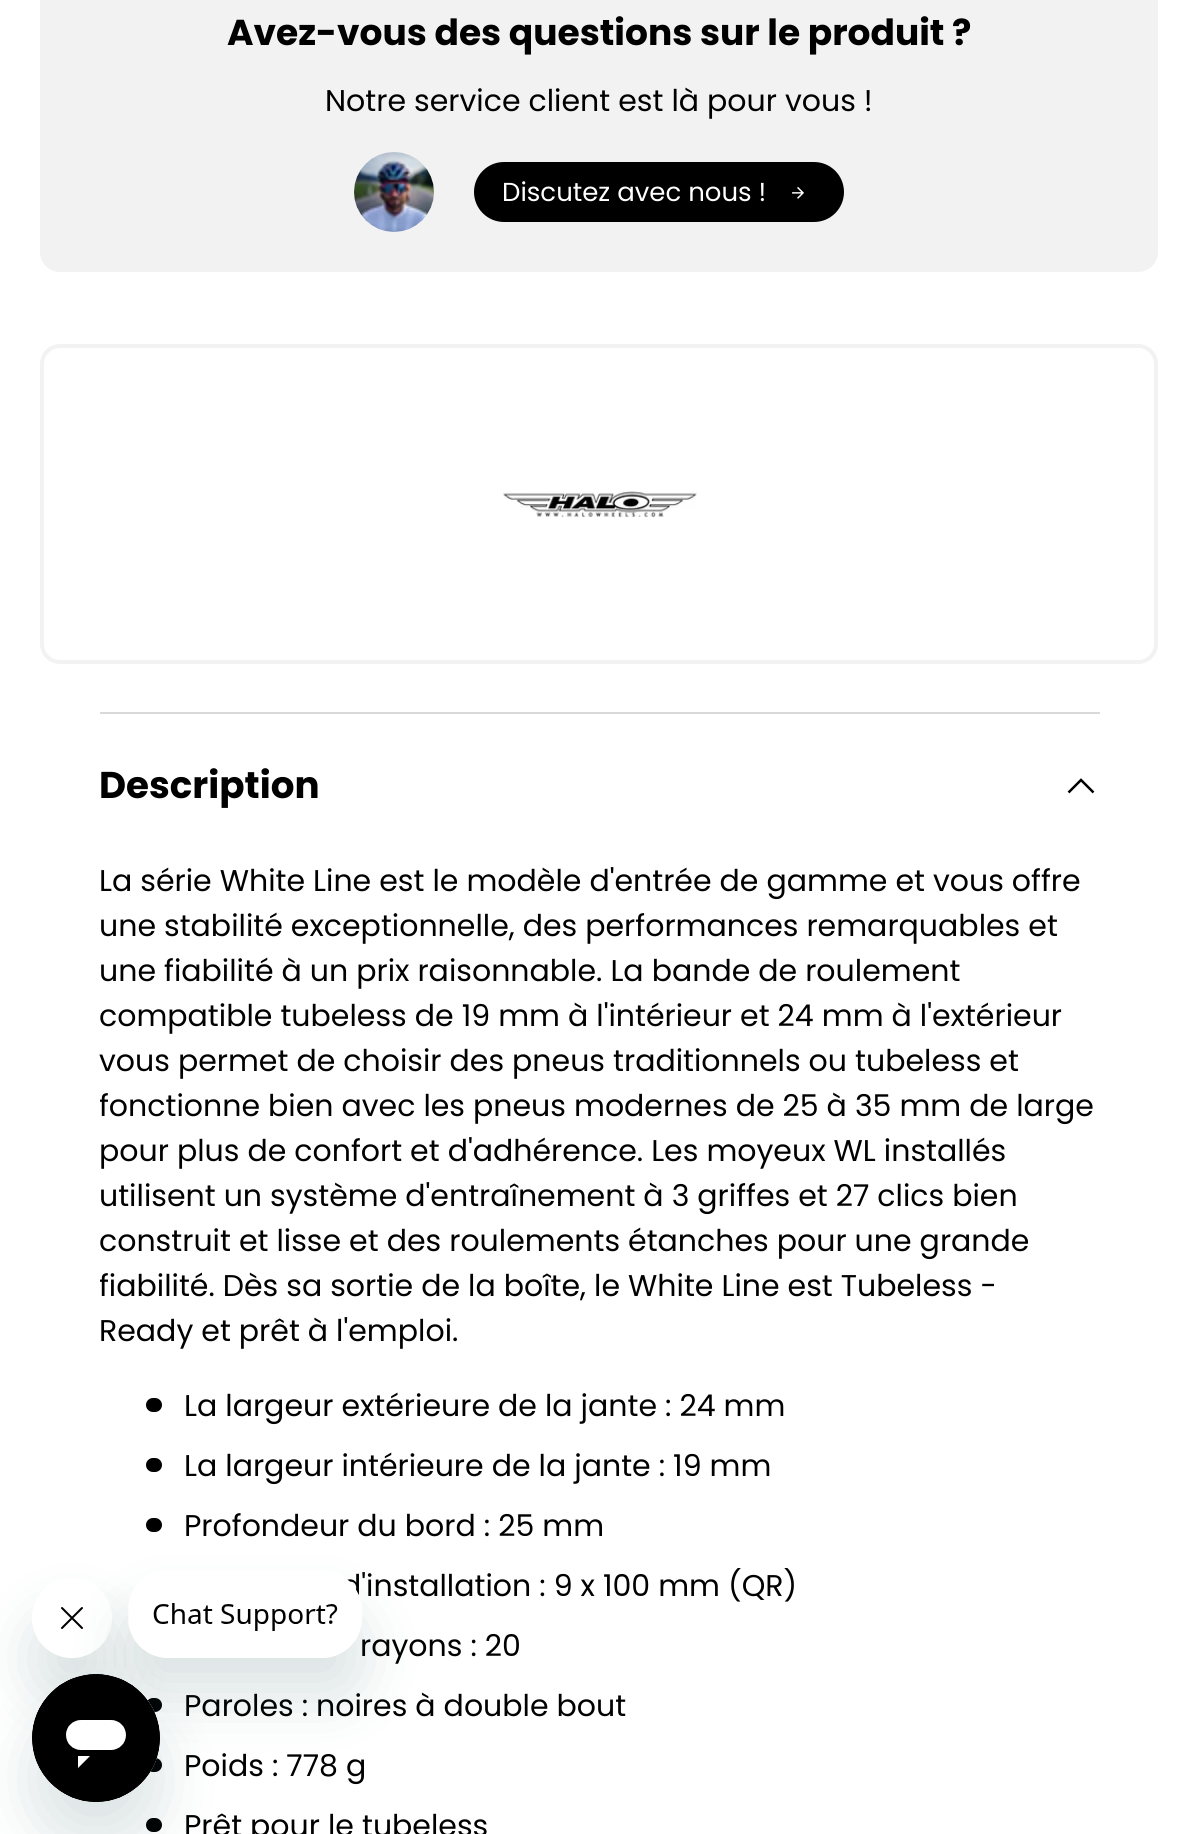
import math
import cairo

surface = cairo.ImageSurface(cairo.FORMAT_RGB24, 1197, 1834)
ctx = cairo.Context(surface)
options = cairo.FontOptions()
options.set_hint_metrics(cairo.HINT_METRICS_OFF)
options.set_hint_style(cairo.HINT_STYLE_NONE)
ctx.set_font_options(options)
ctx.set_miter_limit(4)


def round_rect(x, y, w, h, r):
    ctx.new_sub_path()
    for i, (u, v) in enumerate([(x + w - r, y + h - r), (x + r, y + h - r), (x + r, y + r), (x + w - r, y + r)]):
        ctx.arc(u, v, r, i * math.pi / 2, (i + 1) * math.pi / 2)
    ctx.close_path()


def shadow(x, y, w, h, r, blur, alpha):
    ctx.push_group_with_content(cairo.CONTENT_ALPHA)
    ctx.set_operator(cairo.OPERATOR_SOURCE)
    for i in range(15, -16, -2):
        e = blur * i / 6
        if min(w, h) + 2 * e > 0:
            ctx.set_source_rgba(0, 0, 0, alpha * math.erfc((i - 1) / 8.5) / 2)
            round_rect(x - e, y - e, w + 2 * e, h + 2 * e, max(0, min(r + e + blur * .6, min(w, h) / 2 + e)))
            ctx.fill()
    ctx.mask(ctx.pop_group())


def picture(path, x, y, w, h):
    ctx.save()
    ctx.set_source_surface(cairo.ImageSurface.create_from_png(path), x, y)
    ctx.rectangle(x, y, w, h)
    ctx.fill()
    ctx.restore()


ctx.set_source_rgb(1, 1, 1)
ctx.paint()
ctx.set_source_rgb(0.949, 0.949, 0.949)
round_rect(40, -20, 1118, 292, 20)
ctx.fill()
ctx.select_font_face("Poppins", cairo.FONT_SLANT_NORMAL, cairo.FONT_WEIGHT_BOLD)
ctx.set_font_size(36)
ctx.set_source_rgb(0, 0, 0)
ctx.move_to(227, 45)
ctx.show_text("Avez-vous des questions sur le produit ?")
ctx.select_font_face("Poppins")
ctx.set_font_size(30)
ctx.move_to(325, 111)
ctx.show_text("Notre service client est là pour vous !")
picture("img1.png", 354, 152, 80, 80)
round_rect(474, 162, 370, 60, 30)
ctx.fill()
ctx.set_font_size(26)
ctx.set_source_rgb(1, 1, 1)
ctx.move_to(502, 201)
ctx.show_text("Discutez avec nous !")
picture("img2.png", 792, 187, 12, 12)
round_rect(42, 346, 1114, 316, 18)
ctx.set_source_rgb(0.949, 0.949, 0.949)
ctx.set_line_width(4)
ctx.stroke()
picture("img3.png", 503, 491, 194, 26)
ctx.set_source_rgb(0.851, 0.851, 0.851)
ctx.rectangle(100, 712, 1000, 2)
ctx.fill()
ctx.select_font_face("Poppins", cairo.FONT_SLANT_NORMAL, cairo.FONT_WEIGHT_BOLD)
ctx.set_font_size(37.25)
ctx.set_source_rgb(0, 0, 0)
ctx.move_to(99, 798)
ctx.show_text("Description")
ctx.new_path()
ctx.move_to(1093.5, 792.5)
ctx.line_to(1081, 780)
ctx.line_to(1068.5, 792.5)
ctx.set_line_width(2.5)
ctx.stroke()
ctx.select_font_face("Poppins")
ctx.set_font_size(30)
ctx.move_to(99, 891)
ctx.show_text("La série White Line est le modèle d'entrée de gamme et vous offre")
ctx.move_to(99, 936)
ctx.show_text("une stabilité exceptionnelle, des performances remarquables et")
ctx.move_to(99, 981)
ctx.show_text("une fiabilité à un prix raisonnable. La bande de roulement")
ctx.move_to(99, 1026)
ctx.show_text("compatible tubeless de 19 mm à l'intérieur et 24 mm à l'extérieur")
ctx.move_to(99, 1071)
ctx.show_text("vous permet de choisir des pneus traditionnels ou tubeless et")
ctx.save()
ctx.rectangle(100, 858, 1000, 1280)
ctx.clip()
ctx.move_to(99, 1116)
ctx.show_text("fonctionne bien avec les pneus modernes de 25 à 35 mm de large")
ctx.restore()
ctx.move_to(99, 1161)
ctx.show_text("pour plus de confort et d'adhérence. Les moyeux WL installés")
ctx.move_to(99, 1206)
ctx.show_text("utilisent un système d'entraînement à 3 griffes et 27 clics bien")
ctx.move_to(99, 1251)
ctx.show_text("construit et lisse et des roulements étanches pour une grande")
ctx.save()
ctx.rectangle(100, 858, 1000, 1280)
ctx.clip()
ctx.move_to(99, 1296)
ctx.show_text("fiabilité. Dès sa sortie de la boîte, le White Line est Tubeless -")
ctx.restore()
ctx.move_to(99, 1341)
ctx.show_text("Ready et prêt à l'emploi.")
round_rect(146, 1398, 16, 14, 7)
ctx.fill()
ctx.move_to(184, 1416)
ctx.show_text("La largeur extérieure de la jante : 24 mm")
round_rect(146, 1458, 16, 14, 7)
ctx.fill()
ctx.move_to(184, 1476)
ctx.show_text("La largeur intérieure de la jante : 19 mm")
round_rect(146, 1518, 16, 14, 7)
ctx.fill()
ctx.move_to(184, 1536)
ctx.show_text("Profondeur du bord : 25 mm")
ctx.move_to(341, 1596)
ctx.show_text("d'installation : 9 x 100 mm (QR)")
ctx.move_to(360, 1656)
ctx.show_text("rayons : 20")
round_rect(146, 1698, 16, 14, 7)
ctx.fill()
ctx.move_to(184, 1716)
ctx.show_text("Paroles : noires à double bout")
round_rect(146, 1758, 16, 14, 7)
ctx.fill()
ctx.move_to(184, 1776)
ctx.show_text("Poids : 778 g")
round_rect(146, 1818, 16, 14, 7)
ctx.fill()
ctx.move_to(184, 1836)
ctx.show_text("Prêt pour le tubeless")
ctx.save()
ctx.set_fill_rule(cairo.FILL_RULE_EVEN_ODD)
ctx.new_path()
ctx.move_to(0, 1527)
ctx.line_to(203, 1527)
ctx.line_to(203, 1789)
ctx.line_to(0, 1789)
ctx.close_path()
ctx.move_to(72, 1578)
ctx.curve_to(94, 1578, 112, 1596, 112, 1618)
ctx.curve_to(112, 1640, 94, 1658, 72, 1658)
ctx.curve_to(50, 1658, 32, 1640, 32, 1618)
ctx.curve_to(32, 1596, 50, 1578, 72, 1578)
ctx.close_path()
ctx.clip()
ctx.set_source_rgb(0.09, 0.286, 0.302)
shadow(32, 1618, 80, 80, 40, 30, 0.15)
ctx.restore()
picture("img5.png", 61, 1607, 22, 22)
ctx.save()
ctx.set_fill_rule(cairo.FILL_RULE_EVEN_ODD)
ctx.new_path()
ctx.move_to(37, 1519)
ctx.line_to(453, 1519)
ctx.line_to(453, 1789)
ctx.line_to(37, 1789)
ctx.close_path()
ctx.move_to(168, 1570)
ctx.line_to(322, 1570)
ctx.curve_to(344, 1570, 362, 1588, 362, 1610)
ctx.line_to(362, 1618)
ctx.curve_to(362, 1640, 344, 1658, 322, 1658)
ctx.line_to(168, 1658)
ctx.curve_to(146, 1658, 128, 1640, 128, 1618)
ctx.line_to(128, 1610)
ctx.curve_to(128, 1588, 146, 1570, 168, 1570)
ctx.close_path()
ctx.clip()
ctx.set_source_rgb(0.09, 0.286, 0.302)
shadow(128, 1610, 234, 88, 40, 30, 0.15)
ctx.restore()
picture("img4.png", 129, 1573, 230, 84)
ctx.set_source_rgb(0.09, 0.286, 0.302)
shadow(32, 1714, 128, 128, 64, 30, 0.15)
picture("img6.png", 32, 1674, 128, 128)
surface.write_to_png("page.png")
